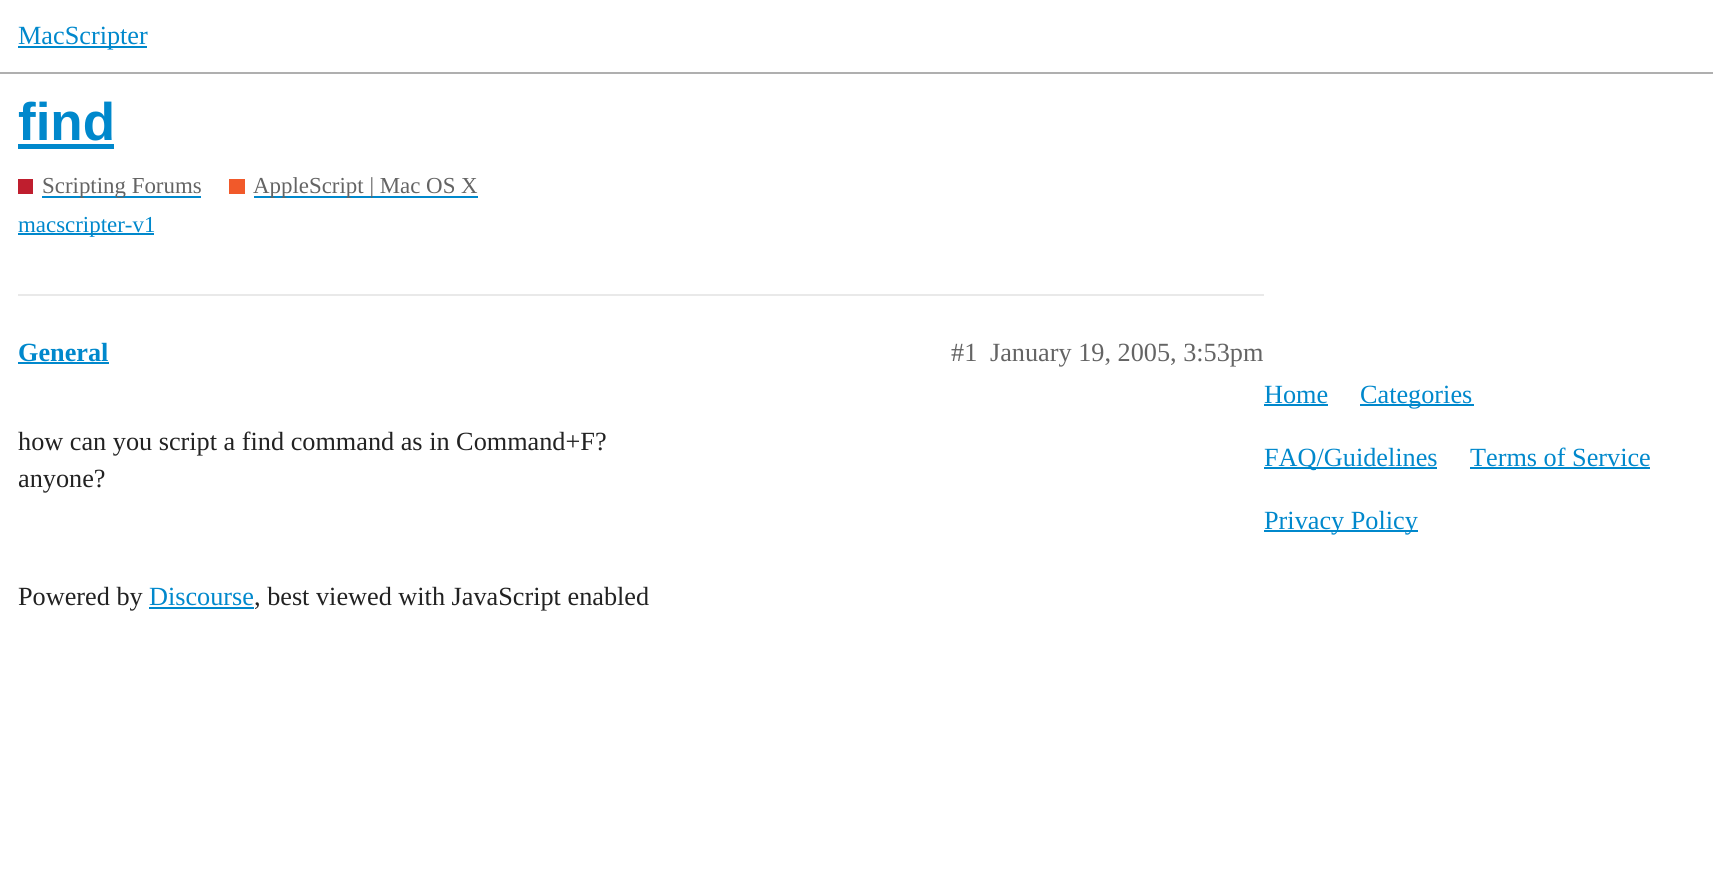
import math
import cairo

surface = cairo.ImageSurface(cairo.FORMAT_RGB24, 1713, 871)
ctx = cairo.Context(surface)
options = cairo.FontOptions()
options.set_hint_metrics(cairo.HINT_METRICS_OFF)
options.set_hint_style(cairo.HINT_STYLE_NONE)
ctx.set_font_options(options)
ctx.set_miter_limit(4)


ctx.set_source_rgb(1, 1, 1)
ctx.paint()
ctx.set_source_rgb(0.686, 0.686, 0.686)
ctx.rectangle(0, 72, 1713, 2)
ctx.fill()
ctx.set_source_rgb(0, 0.533, 0.8)
ctx.rectangle(18, 46, 129, 2)
ctx.fill()
ctx.select_font_face("Liberation Serif")
ctx.set_font_size(26.25)
ctx.move_to(18, 44)
ctx.show_text("MacScripter")
ctx.select_font_face("Liberation Sans", cairo.FONT_SLANT_NORMAL, cairo.FONT_WEIGHT_BOLD)
ctx.set_font_size(53)
ctx.move_to(18, 140)
ctx.show_text("find")
ctx.rectangle(18, 144, 96, 5)
ctx.fill()
ctx.set_source_rgb(0.749, 0.118, 0.18)
ctx.rectangle(18, 179, 15, 15)
ctx.fill()
ctx.set_source_rgb(0, 0.533, 0.8)
ctx.rectangle(42, 196, 159, 2)
ctx.fill()
ctx.select_font_face("Liberation Serif")
ctx.set_font_size(22.9)
ctx.set_source_rgb(0.392, 0.392, 0.392)
ctx.move_to(42, 193)
ctx.show_text("Scripting Forums")
ctx.set_source_rgb(0.945, 0.349, 0.165)
ctx.rectangle(229, 179, 16, 15)
ctx.fill()
ctx.set_source_rgb(0, 0.533, 0.8)
ctx.rectangle(254, 196, 224, 2)
ctx.fill()
ctx.set_source_rgb(0.392, 0.392, 0.392)
ctx.move_to(253, 193)
ctx.show_text("AppleScript | Mac OS X")
ctx.set_source_rgb(0, 0.533, 0.8)
ctx.rectangle(18, 233, 136, 2)
ctx.fill()
ctx.move_to(18, 232)
ctx.show_text("macscripter-v1")
ctx.set_source_rgb(0.914, 0.914, 0.914)
ctx.rectangle(18, 294, 1246, 2)
ctx.fill()
ctx.select_font_face("Liberation Serif", cairo.FONT_SLANT_NORMAL, cairo.FONT_WEIGHT_BOLD)
ctx.set_font_size(26.25)
ctx.set_source_rgb(0, 0.533, 0.8)
ctx.move_to(18, 361)
ctx.show_text("General")
ctx.rectangle(18, 362, 91, 2)
ctx.fill()
ctx.select_font_face("Liberation Serif")
ctx.set_source_rgb(0.392, 0.392, 0.392)
ctx.move_to(951, 361)
ctx.show_text("#1")
ctx.move_to(990, 361)
ctx.show_text("January 19, 2005, 3:53pm")
ctx.set_source_rgb(0.133, 0.133, 0.133)
ctx.move_to(18, 450)
ctx.show_text("how can you script a find command as in Command+F?")
ctx.move_to(18, 487)
ctx.show_text("anyone?")
ctx.set_source_rgb(0, 0.533, 0.8)
ctx.move_to(1264, 403)
ctx.show_text("Home")
ctx.rectangle(1264, 404, 64, 2)
ctx.fill()
ctx.rectangle(1360, 404, 114, 2)
ctx.fill()
ctx.move_to(1360, 403)
ctx.show_text("Categories")
ctx.rectangle(1264, 467, 173, 2)
ctx.fill()
ctx.move_to(1264, 466)
ctx.show_text("FAQ/Guidelines")
ctx.move_to(1470, 466)
ctx.show_text("Terms of Service")
ctx.rectangle(1470, 467, 180, 2)
ctx.fill()
ctx.rectangle(1264, 530, 154, 2)
ctx.fill()
ctx.move_to(1264, 529)
ctx.show_text("Privacy Policy")
ctx.set_source_rgb(0.133, 0.133, 0.133)
ctx.move_to(18, 605)
ctx.show_text("Powered by")
ctx.set_source_rgb(0, 0.533, 0.8)
ctx.move_to(149, 605)
ctx.show_text("Discourse")
ctx.rectangle(149, 607, 105, 2)
ctx.fill()
ctx.set_source_rgb(0.133, 0.133, 0.133)
ctx.move_to(254, 605)
ctx.show_text(", best viewed with JavaScript enabled")
surface.write_to_png("page.png")
